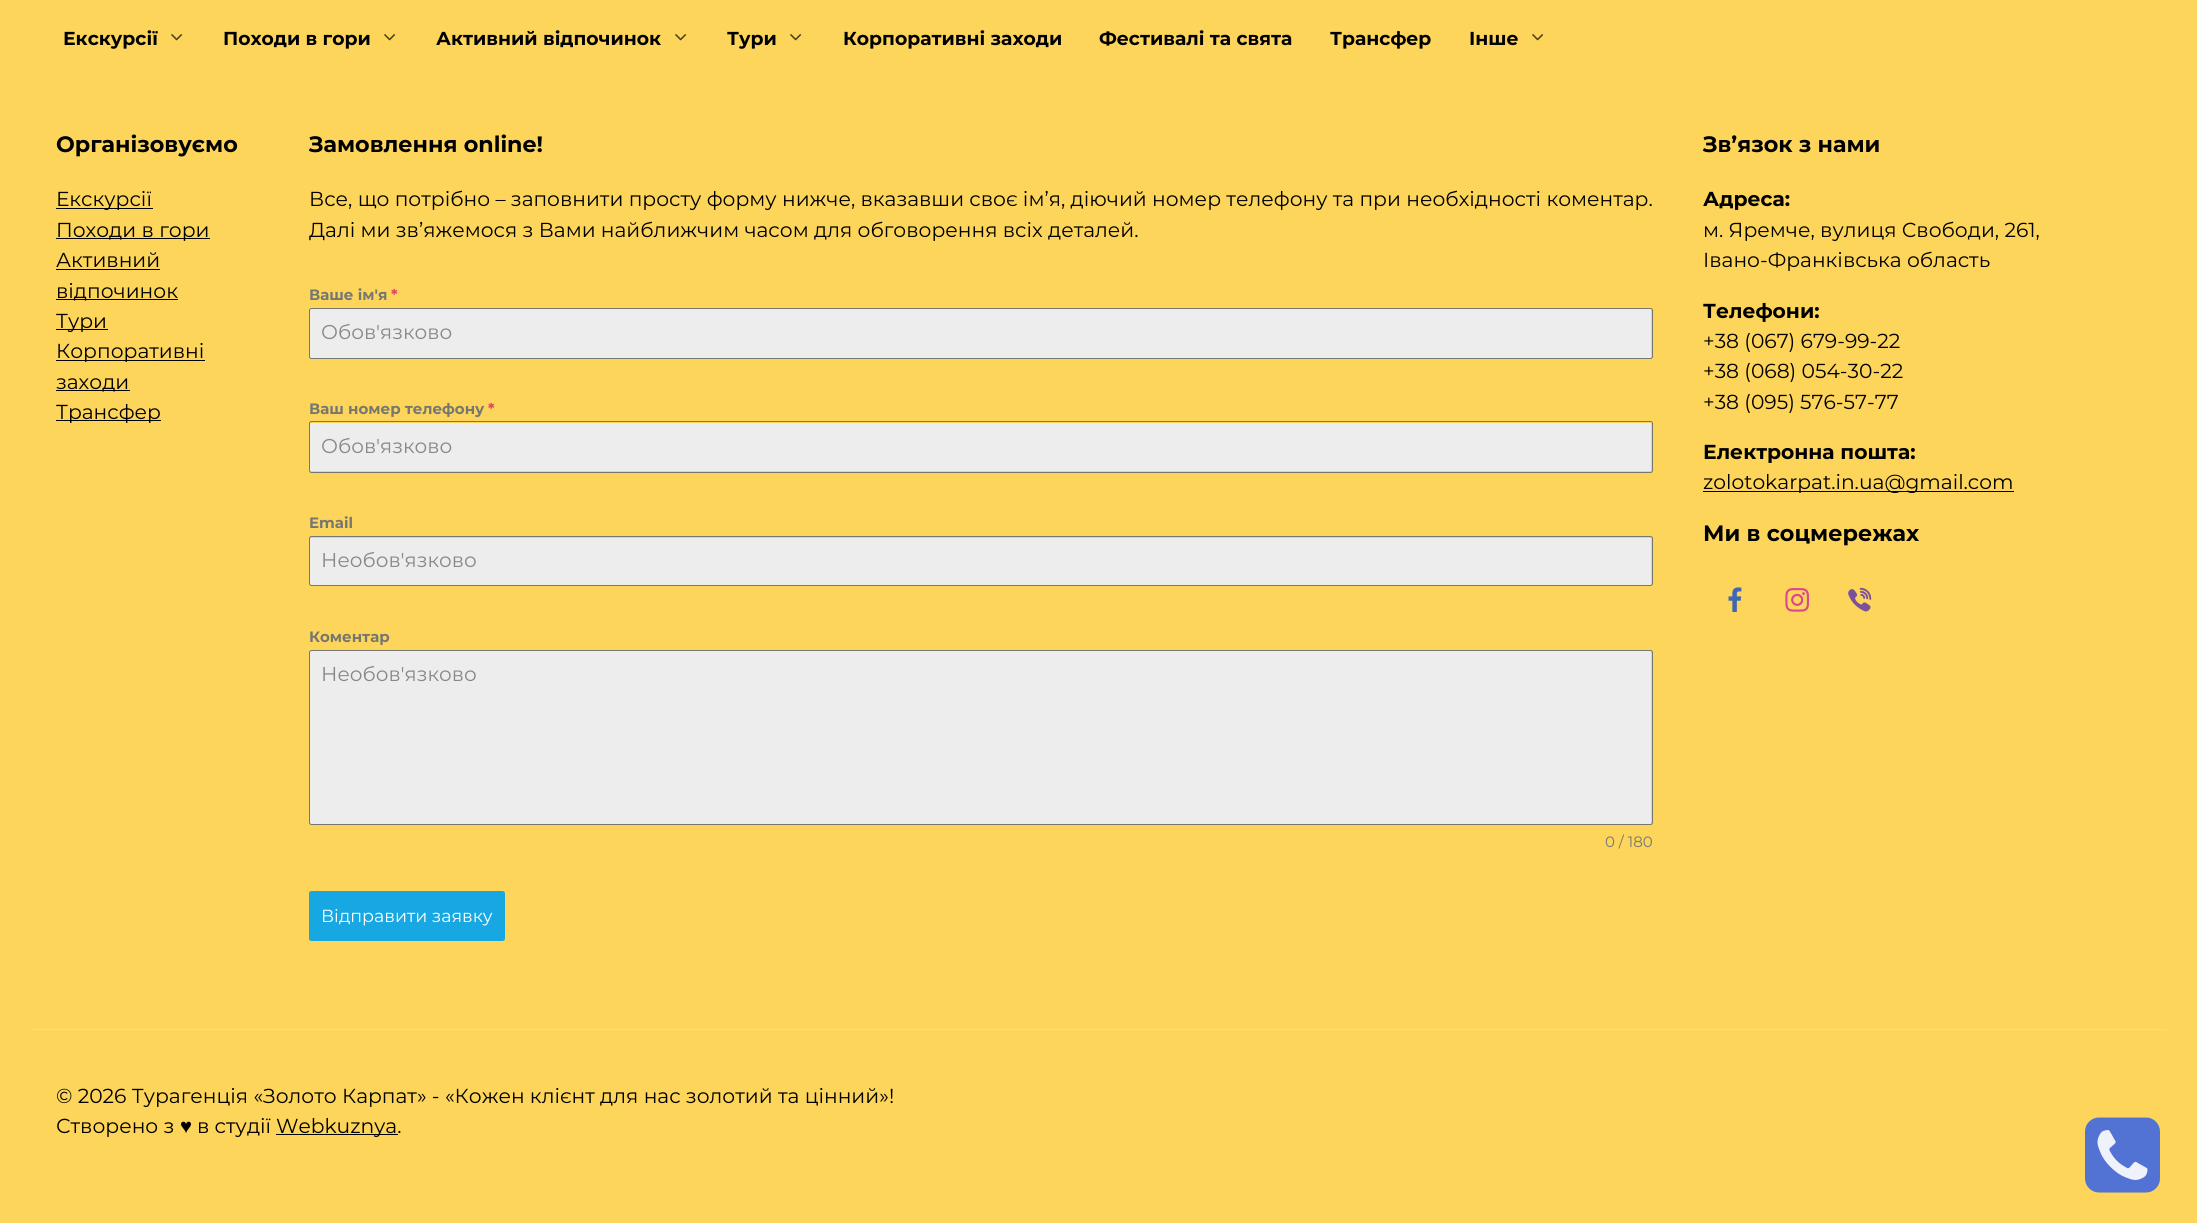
import math
import cairo

surface = cairo.ImageSurface(cairo.FORMAT_RGB24, 2197, 1223)
ctx = cairo.Context(surface)
options = cairo.FontOptions()
options.set_hint_metrics(cairo.HINT_METRICS_OFF)
options.set_hint_style(cairo.HINT_STYLE_NONE)
ctx.set_font_options(options)
ctx.set_miter_limit(4)


def round_rect(x, y, w, h, r):
    ctx.new_sub_path()
    for i, (u, v) in enumerate([(x + w - r, y + h - r), (x + r, y + h - r), (x + r, y + r), (x + w - r, y + r)]):
        ctx.arc(u, v, r, i * math.pi / 2, (i + 1) * math.pi / 2)
    ctx.close_path()


def picture(path, x, y, w, h):
    ctx.save()
    ctx.set_source_surface(cairo.ImageSurface.create_from_png(path), x, y)
    ctx.rectangle(x, y, w, h)
    ctx.fill()
    ctx.restore()


ctx.set_source_rgb(0.988, 0.835, 0.353)
ctx.paint()
ctx.select_font_face("Montserrat", cairo.FONT_SLANT_NORMAL, cairo.FONT_WEIGHT_BOLD)
ctx.set_font_size(18.75)
ctx.set_source_rgb(0, 0, 0)
ctx.move_to(63, 45)
ctx.show_text("Екскурсії")
ctx.select_font_face("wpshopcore")
ctx.set_source_rgb(0.298, 0.251, 0.106)
ctx.move_to(167, 45)
ctx.show_text("﹀")
ctx.select_font_face("Montserrat", cairo.FONT_SLANT_NORMAL, cairo.FONT_WEIGHT_BOLD)
ctx.set_source_rgb(0, 0, 0)
ctx.move_to(223, 45)
ctx.show_text("Походи в гори")
ctx.select_font_face("wpshopcore")
ctx.set_source_rgb(0.298, 0.251, 0.106)
ctx.move_to(380, 45)
ctx.show_text("﹀")
ctx.select_font_face("Montserrat", cairo.FONT_SLANT_NORMAL, cairo.FONT_WEIGHT_BOLD)
ctx.set_source_rgb(0, 0, 0)
ctx.move_to(436, 45)
ctx.show_text("Активний відпочинок")
ctx.select_font_face("wpshopcore")
ctx.set_source_rgb(0.298, 0.251, 0.106)
ctx.move_to(671, 45)
ctx.show_text("﹀")
ctx.select_font_face("Montserrat", cairo.FONT_SLANT_NORMAL, cairo.FONT_WEIGHT_BOLD)
ctx.set_source_rgb(0, 0, 0)
ctx.move_to(727, 45)
ctx.show_text("Тури")
ctx.select_font_face("wpshopcore")
ctx.set_source_rgb(0.298, 0.251, 0.106)
ctx.move_to(786, 45)
ctx.show_text("﹀")
ctx.select_font_face("Montserrat", cairo.FONT_SLANT_NORMAL, cairo.FONT_WEIGHT_BOLD)
ctx.set_source_rgb(0, 0, 0)
ctx.move_to(843, 45)
ctx.show_text("Корпоративні заходи")
ctx.move_to(1099, 45)
ctx.show_text("Фестивалі та свята")
ctx.move_to(1330, 45)
ctx.show_text("Трансфер")
ctx.move_to(1469, 45)
ctx.show_text("Інше")
ctx.select_font_face("wpshopcore")
ctx.set_source_rgb(0.298, 0.251, 0.106)
ctx.move_to(1528, 45)
ctx.show_text("﹀")
ctx.set_source_rgb(0.992, 0.867, 0.482)
ctx.rectangle(31, 1029, 2135, 1)
ctx.fill()
ctx.select_font_face("Montserrat", cairo.FONT_SLANT_NORMAL, cairo.FONT_WEIGHT_BOLD)
ctx.set_font_size(22.25)
ctx.set_source_rgb(0, 0, 0)
ctx.move_to(56, 152)
ctx.show_text("Організовуємо")
ctx.rectangle(56, 208, 97, 1)
ctx.fill()
ctx.select_font_face("Montserrat")
ctx.set_font_size(20.25)
ctx.move_to(56, 206)
ctx.show_text("Екскурсії")
ctx.rectangle(56, 238, 154, 1)
ctx.fill()
ctx.move_to(56, 237)
ctx.show_text("Походи в гори")
ctx.move_to(56, 267)
ctx.show_text("Активний")
ctx.rectangle(56, 269, 104, 1)
ctx.fill()
ctx.rectangle(56, 299, 122, 1)
ctx.fill()
ctx.move_to(56, 298)
ctx.show_text("відпочинок")
ctx.rectangle(56, 329, 52, 1)
ctx.fill()
ctx.move_to(56, 328)
ctx.show_text("Тури")
ctx.rectangle(56, 360, 149, 1)
ctx.fill()
ctx.move_to(56, 358)
ctx.show_text("Корпоративні")
ctx.rectangle(56, 390, 74, 1)
ctx.fill()
ctx.move_to(56, 389)
ctx.show_text("заходи")
ctx.rectangle(56, 420, 105, 1)
ctx.fill()
ctx.move_to(56, 419)
ctx.show_text("Трансфер")
ctx.select_font_face("Montserrat", cairo.FONT_SLANT_NORMAL, cairo.FONT_WEIGHT_BOLD)
ctx.set_font_size(22.25)
ctx.move_to(309, 152)
ctx.show_text("Замовлення online!")
ctx.select_font_face("Montserrat")
ctx.set_font_size(20.25)
ctx.move_to(309, 206)
ctx.show_text("Все, що потрібно – заповнити просту форму нижче, вказавши своє ім’я, діючий номер телефону та при необхідності коментар.")
ctx.move_to(309, 237)
ctx.show_text("Далі ми зв’яжемося з Вами найближчим часом для обговорення всіх деталей.")
ctx.select_font_face("Montserrat", cairo.FONT_SLANT_NORMAL, cairo.FONT_WEIGHT_BOLD)
ctx.set_font_size(15)
ctx.set_source_rgb(0.467, 0.467, 0.443)
ctx.move_to(309, 300)
ctx.show_text("Ваше ім'я")
ctx.set_source_rgb(0.878, 0.271, 0.384)
ctx.move_to(391, 300)
ctx.show_text("*")
ctx.set_source_rgb(0.929, 0.929, 0.929)
round_rect(310, 309, 1341, 49, 1)
ctx.fill()
round_rect(309.5, 308.5, 1343, 50, 2)
ctx.set_source_rgb(0.467, 0.467, 0.443)
ctx.set_line_width(1)
ctx.stroke()
ctx.select_font_face("Montserrat")
ctx.set_font_size(20)
ctx.set_source_rgb(0.533, 0.533, 0.533)
ctx.move_to(321, 339)
ctx.show_text("Обов'язково")
ctx.select_font_face("Montserrat", cairo.FONT_SLANT_NORMAL, cairo.FONT_WEIGHT_BOLD)
ctx.set_font_size(15)
ctx.set_source_rgb(0.467, 0.467, 0.443)
ctx.move_to(309, 414)
ctx.show_text("Ваш номер телефону")
ctx.set_source_rgb(0.878, 0.271, 0.384)
ctx.move_to(488, 414)
ctx.show_text("*")
ctx.set_source_rgb(0.929, 0.929, 0.929)
round_rect(310, 423, 1341, 48, 1)
ctx.fill()
round_rect(309.5, 421.5, 1343, 51, 2)
ctx.set_source_rgb(0.467, 0.467, 0.443)
ctx.stroke()
ctx.select_font_face("Montserrat")
ctx.set_font_size(20)
ctx.set_source_rgb(0.533, 0.533, 0.533)
ctx.move_to(321, 453)
ctx.show_text("Обов'язково")
ctx.select_font_face("Montserrat", cairo.FONT_SLANT_NORMAL, cairo.FONT_WEIGHT_BOLD)
ctx.set_font_size(15)
ctx.set_source_rgb(0.467, 0.467, 0.443)
ctx.move_to(309, 528)
ctx.show_text("Email")
ctx.set_source_rgb(0.929, 0.929, 0.929)
round_rect(310, 538, 1341, 47, 1)
ctx.fill()
round_rect(309.5, 536.5, 1343, 49, 2)
ctx.set_source_rgb(0.467, 0.467, 0.443)
ctx.stroke()
ctx.select_font_face("Montserrat")
ctx.set_font_size(20)
ctx.set_source_rgb(0.533, 0.533, 0.533)
ctx.move_to(321, 567)
ctx.show_text("Необов'язково")
ctx.select_font_face("Montserrat", cairo.FONT_SLANT_NORMAL, cairo.FONT_WEIGHT_BOLD)
ctx.set_font_size(15)
ctx.set_source_rgb(0.467, 0.467, 0.443)
ctx.move_to(309, 642)
ctx.show_text("Коментар")
ctx.set_source_rgb(0.929, 0.929, 0.929)
round_rect(310, 651, 1341, 173, 1)
ctx.fill()
round_rect(309.5, 650.5, 1343, 174, 2)
ctx.set_source_rgb(0.467, 0.467, 0.443)
ctx.stroke()
ctx.select_font_face("Montserrat")
ctx.set_font_size(20)
ctx.set_source_rgb(0.533, 0.533, 0.533)
ctx.move_to(321, 681)
ctx.show_text("Необов'язково")
ctx.set_font_size(15)
ctx.set_source_rgb(0.467, 0.467, 0.443)
ctx.move_to(1605, 847)
ctx.show_text("0 / 180")
ctx.set_source_rgb(0.09, 0.659, 0.89)
round_rect(309, 891, 196, 50, 2.5)
ctx.fill()
ctx.set_font_size(17.5)
ctx.set_source_rgb(1, 1, 1)
ctx.move_to(321, 922)
ctx.show_text("Відправити заявку")
ctx.select_font_face("Montserrat", cairo.FONT_SLANT_NORMAL, cairo.FONT_WEIGHT_BOLD)
ctx.set_font_size(22.25)
ctx.set_source_rgb(0, 0, 0)
ctx.move_to(1703, 152)
ctx.show_text("Зв’язок з нами")
ctx.set_font_size(20.25)
ctx.move_to(1703, 206)
ctx.show_text("Адреса:")
ctx.select_font_face("Montserrat")
ctx.move_to(1703, 237)
ctx.show_text("м. Яремче, вулиця Свободи, 261,")
ctx.move_to(1703, 267)
ctx.show_text("Івано-Франківська область")
ctx.select_font_face("Montserrat", cairo.FONT_SLANT_NORMAL, cairo.FONT_WEIGHT_BOLD)
ctx.move_to(1703, 318)
ctx.show_text("Телефони:")
ctx.select_font_face("Montserrat")
ctx.move_to(1703, 348)
ctx.show_text("+38 (067) 679-99-22")
ctx.move_to(1703, 378)
ctx.show_text("+38 (068) 054-30-22")
ctx.move_to(1703, 409)
ctx.show_text("+38 (095) 576-57-77")
ctx.select_font_face("Montserrat", cairo.FONT_SLANT_NORMAL, cairo.FONT_WEIGHT_BOLD)
ctx.move_to(1703, 459)
ctx.show_text("Електронна пошта:")
ctx.rectangle(1703, 491, 311, 1)
ctx.fill()
ctx.select_font_face("Montserrat")
ctx.move_to(1703, 489)
ctx.show_text("zolotokarpat.in.ua@gmail.com")
ctx.select_font_face("Montserrat", cairo.FONT_SLANT_NORMAL, cairo.FONT_WEIGHT_BOLD)
ctx.set_font_size(22.25)
ctx.move_to(1703, 541)
ctx.show_text("Ми в соцмережах")
picture("img1.png", 1728, 587, 14, 25)
picture("img2.png", 1785, 588, 24, 24)
picture("img3.png", 1848, 587, 24, 25)
ctx.select_font_face("Montserrat")
ctx.set_font_size(20.25)
ctx.move_to(56, 1103)
ctx.show_text("© 2026 Турагенція «Золото Карпат» - «Кожен клієнт для нас золотий та цінний»!")
ctx.move_to(56, 1133)
ctx.show_text("Створено з")
ctx.select_font_face("Liberation Sans")
ctx.move_to(180, 1133)
ctx.show_text("♥")
ctx.select_font_face("Montserrat")
ctx.move_to(197, 1133)
ctx.show_text("в студії")
ctx.rectangle(276, 1134, 122, 1)
ctx.fill()
ctx.move_to(276, 1133)
ctx.show_text("Webkuznya.")
picture("img4.png", 2085, 1117, 75, 76)
surface.write_to_png("page.png")
